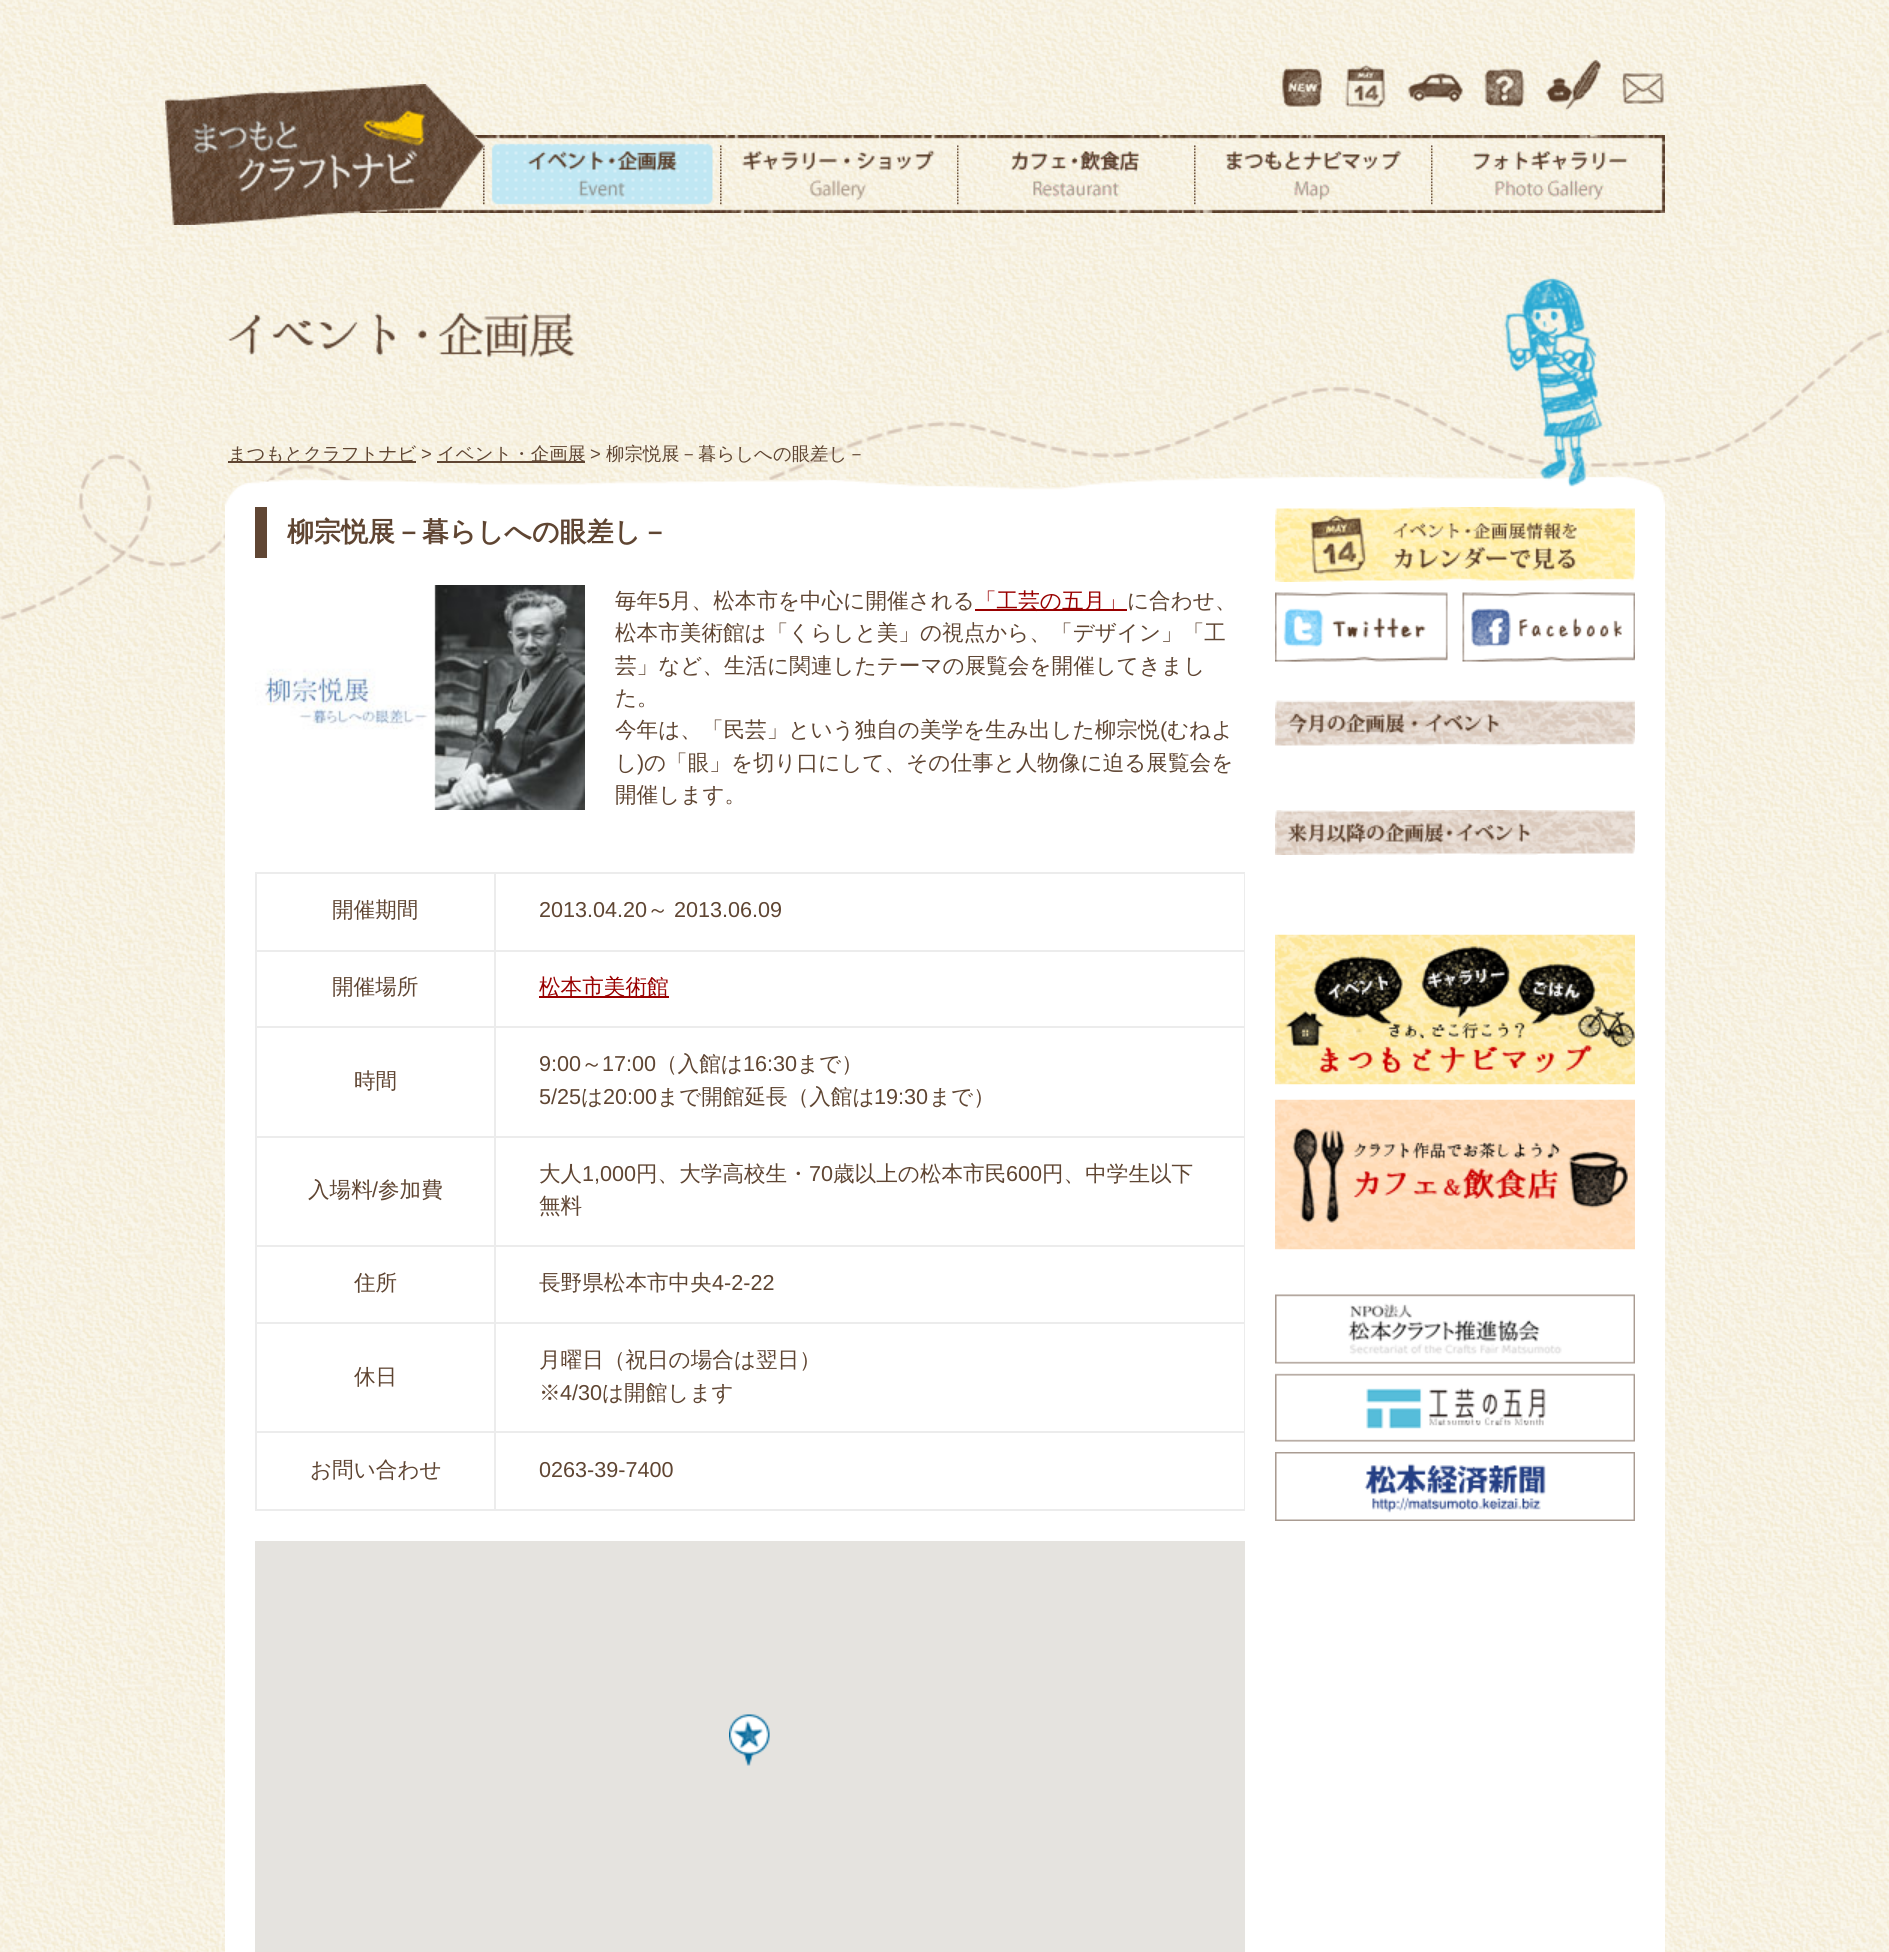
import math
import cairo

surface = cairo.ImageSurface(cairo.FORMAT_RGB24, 1889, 1952)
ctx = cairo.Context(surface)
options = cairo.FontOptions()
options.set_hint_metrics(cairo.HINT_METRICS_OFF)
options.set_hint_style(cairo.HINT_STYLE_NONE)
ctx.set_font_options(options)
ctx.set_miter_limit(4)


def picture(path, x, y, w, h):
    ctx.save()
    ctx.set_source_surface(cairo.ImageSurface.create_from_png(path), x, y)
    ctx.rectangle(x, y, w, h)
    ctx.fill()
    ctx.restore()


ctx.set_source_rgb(1, 1, 1)
ctx.paint()
picture("img1.png", 0, 0, 1889, 1952)
picture("img2.png", 0, 328, 1889, 292)
picture("img10.png", 337, 135, 1328, 78)
picture("img11.png", 483, 143, 230, 62)
picture("img3.png", 165, 84, 320, 141)
picture("img4.png", 1282, 68, 40, 39)
picture("img5.png", 1345, 64, 42, 45)
picture("img6.png", 1408, 73, 55, 30)
picture("img7.png", 1484, 68, 41, 39)
picture("img8.png", 1546, 59, 55, 51)
picture("img9.png", 1622, 73, 42, 31)
picture("img12.png", 720, 145, 215, 60)
picture("img13.png", 957, 145, 182, 60)
picture("img14.png", 1194, 145, 208, 60)
picture("img15.png", 1431, 145, 197, 60)
picture("img16.png", 225, 277, 1440, 230)
ctx.set_source_rgb(0.373, 0.271, 0.196)
ctx.rectangle(228, 461, 188, 2)
ctx.fill()
ctx.select_font_face("WenQuanYi Zen Hei Medium")
ctx.set_font_size(18.4)
ctx.move_to(228, 460)
ctx.show_text("まつもとクラフトナビ")
ctx.select_font_face("Liberation Sans")
ctx.move_to(421, 460)
ctx.show_text(">")
ctx.rectangle(437, 461, 148, 2)
ctx.fill()
ctx.select_font_face("WenQuanYi Zen Hei Medium")
ctx.move_to(437, 460)
ctx.show_text("イベント・企画展")
ctx.select_font_face("Liberation Sans")
ctx.move_to(590, 460)
ctx.show_text(">")
ctx.select_font_face("WenQuanYi Zen Hei Medium")
ctx.move_to(606, 460)
ctx.show_text("柳宗悦展－暮らしへの眼差し－")
ctx.set_source_rgb(1, 1, 1)
ctx.rectangle(225, 507, 1440, 1445)
ctx.fill()
ctx.set_source_rgb(0.376, 0.275, 0.204)
ctx.rectangle(255, 507, 12, 51)
ctx.fill()
ctx.select_font_face("WenQuanYi Zen Hei", cairo.FONT_SLANT_NORMAL, cairo.FONT_WEIGHT_BOLD)
ctx.set_font_size(27)
ctx.set_source_rgb(0.373, 0.271, 0.196)
ctx.move_to(287, 541)
ctx.show_text("柳宗悦展－暮らしへの眼差し－")
picture("img17.png", 255, 585, 330, 225)
ctx.select_font_face("WenQuanYi Zen Hei Medium")
ctx.set_font_size(21.6)
ctx.move_to(615, 608)
ctx.show_text("毎年")
ctx.select_font_face("Liberation Sans")
ctx.move_to(658, 608)
ctx.show_text("5")
ctx.select_font_face("WenQuanYi Zen Hei Medium")
ctx.move_to(670, 608)
ctx.show_text("月、松本市を中心に開催される")
ctx.set_source_rgb(0.6, 0, 0)
ctx.rectangle(975, 609, 152, 2)
ctx.fill()
ctx.move_to(975, 608)
ctx.show_text("「工芸の五月」")
ctx.set_source_rgb(0.373, 0.271, 0.196)
ctx.move_to(1127, 608)
ctx.show_text("に合わせ、")
ctx.move_to(615, 640)
ctx.show_text("松本市美術館は「くらしと美」の視点から、「デザイン」「工")
ctx.move_to(615, 673)
ctx.show_text("芸」など、生活に関連したテーマの展覧会を開催してきまし")
ctx.move_to(615, 705)
ctx.show_text("た。")
ctx.move_to(615, 737)
ctx.show_text("今年は、「民芸」という独自の美学を生み出した柳宗悦")
ctx.select_font_face("Liberation Sans")
ctx.move_to(1160, 737)
ctx.show_text("(")
ctx.select_font_face("WenQuanYi Zen Hei Medium")
ctx.move_to(1167, 737)
ctx.show_text("むねよ")
ctx.move_to(615, 770)
ctx.show_text("し")
ctx.select_font_face("Liberation Sans")
ctx.move_to(637, 770)
ctx.show_text(")")
ctx.select_font_face("WenQuanYi Zen Hei Medium")
ctx.move_to(644, 770)
ctx.show_text("の「眼」を切り口にして、その仕事と人物像に迫る展覧会を")
ctx.move_to(615, 802)
ctx.show_text("開催します。")
ctx.set_source_rgb(0.922, 0.922, 0.922)
ctx.rectangle(494, 872, 751, 2)
ctx.fill()
ctx.rectangle(494, 950, 751, 2)
ctx.fill()
ctx.rectangle(494, 1026, 751, 2)
ctx.fill()
ctx.rectangle(494, 1136, 751, 2)
ctx.fill()
ctx.rectangle(494, 1245, 751, 2)
ctx.fill()
ctx.rectangle(494, 1322, 751, 2)
ctx.fill()
ctx.rectangle(494, 1431, 751, 2)
ctx.fill()
ctx.rectangle(1244, 1431, 1, 80)
ctx.fill()
ctx.rectangle(494, 1509, 751, 2)
ctx.fill()
ctx.rectangle(494, 1431, 2, 80)
ctx.fill()
ctx.rectangle(255, 1431, 240, 2)
ctx.fill()
ctx.rectangle(494, 1322, 2, 111)
ctx.fill()
ctx.rectangle(255, 1322, 240, 2)
ctx.fill()
ctx.rectangle(494, 1245, 2, 78)
ctx.fill()
ctx.rectangle(255, 1245, 240, 2)
ctx.fill()
ctx.rectangle(494, 1136, 2, 111)
ctx.fill()
ctx.rectangle(255, 1136, 240, 2)
ctx.fill()
ctx.rectangle(494, 1026, 2, 111)
ctx.fill()
ctx.rectangle(255, 1026, 240, 2)
ctx.fill()
ctx.rectangle(494, 950, 2, 78)
ctx.fill()
ctx.rectangle(255, 950, 240, 2)
ctx.fill()
ctx.rectangle(494, 872, 2, 79)
ctx.fill()
ctx.rectangle(255, 872, 240, 2)
ctx.fill()
ctx.rectangle(255, 1509, 240, 2)
ctx.fill()
ctx.rectangle(255, 1431, 2, 80)
ctx.fill()
ctx.rectangle(255, 1322, 2, 111)
ctx.fill()
ctx.rectangle(255, 1245, 2, 78)
ctx.fill()
ctx.rectangle(255, 1136, 2, 111)
ctx.fill()
ctx.rectangle(255, 1026, 2, 111)
ctx.fill()
ctx.rectangle(255, 950, 2, 78)
ctx.fill()
ctx.rectangle(255, 872, 2, 79)
ctx.fill()
ctx.set_source_rgb(0.373, 0.271, 0.196)
ctx.move_to(332, 917)
ctx.show_text("開催期間")
ctx.set_source_rgb(0.922, 0.922, 0.922)
ctx.rectangle(1244, 1322, 1, 111)
ctx.fill()
ctx.rectangle(1244, 1245, 1, 78)
ctx.fill()
ctx.rectangle(1244, 1136, 1, 111)
ctx.fill()
ctx.rectangle(1244, 1026, 1, 111)
ctx.fill()
ctx.rectangle(1244, 950, 1, 78)
ctx.fill()
ctx.rectangle(1244, 872, 1, 79)
ctx.fill()
ctx.select_font_face("Liberation Sans")
ctx.set_source_rgb(0.373, 0.271, 0.196)
ctx.move_to(539, 917)
ctx.show_text("2013.04.20")
ctx.select_font_face("WenQuanYi Zen Hei Medium")
ctx.move_to(647, 917)
ctx.show_text("～")
ctx.select_font_face("Liberation Sans")
ctx.move_to(674, 917)
ctx.show_text("2013.06.09")
ctx.select_font_face("WenQuanYi Zen Hei Medium")
ctx.move_to(332, 994)
ctx.show_text("開催場所")
ctx.set_source_rgb(0.6, 0, 0)
ctx.rectangle(539, 996, 130, 2)
ctx.fill()
ctx.move_to(539, 994)
ctx.show_text("松本市美術館")
ctx.set_source_rgb(0.373, 0.271, 0.196)
ctx.move_to(354, 1088)
ctx.show_text("時間")
ctx.select_font_face("Liberation Sans")
ctx.move_to(539, 1071)
ctx.show_text("9:00")
ctx.select_font_face("WenQuanYi Zen Hei Medium")
ctx.move_to(581, 1071)
ctx.show_text("～")
ctx.select_font_face("Liberation Sans")
ctx.move_to(602, 1071)
ctx.show_text("17:00")
ctx.select_font_face("WenQuanYi Zen Hei Medium")
ctx.move_to(656, 1071)
ctx.show_text("（入館は")
ctx.select_font_face("Liberation Sans")
ctx.move_to(743, 1071)
ctx.show_text("16:30")
ctx.select_font_face("WenQuanYi Zen Hei Medium")
ctx.move_to(797, 1071)
ctx.show_text("まで）")
ctx.select_font_face("Liberation Sans")
ctx.move_to(539, 1104)
ctx.show_text("5/25")
ctx.select_font_face("WenQuanYi Zen Hei Medium")
ctx.move_to(581, 1104)
ctx.show_text("は")
ctx.select_font_face("Liberation Sans")
ctx.move_to(603, 1104)
ctx.show_text("20:00")
ctx.select_font_face("WenQuanYi Zen Hei Medium")
ctx.move_to(657, 1104)
ctx.show_text("まで開館延長（入館は")
ctx.select_font_face("Liberation Sans")
ctx.move_to(874, 1104)
ctx.show_text("19:30")
ctx.select_font_face("WenQuanYi Zen Hei Medium")
ctx.move_to(929, 1104)
ctx.show_text("まで）")
ctx.move_to(308, 1197)
ctx.show_text("入場料")
ctx.select_font_face("Liberation Sans")
ctx.move_to(372, 1197)
ctx.show_text("/")
ctx.select_font_face("WenQuanYi Zen Hei Medium")
ctx.move_to(378, 1197)
ctx.show_text("参加費")
ctx.move_to(539, 1181)
ctx.show_text("大人")
ctx.select_font_face("Liberation Sans")
ctx.move_to(582, 1181)
ctx.show_text("1,000")
ctx.select_font_face("WenQuanYi Zen Hei Medium")
ctx.move_to(636, 1181)
ctx.show_text("円、大学高校生・")
ctx.select_font_face("Liberation Sans")
ctx.move_to(809, 1181)
ctx.show_text("70")
ctx.select_font_face("WenQuanYi Zen Hei Medium")
ctx.move_to(833, 1181)
ctx.show_text("歳以上の松本市民")
ctx.select_font_face("Liberation Sans")
ctx.move_to(1006, 1181)
ctx.show_text("600")
ctx.select_font_face("WenQuanYi Zen Hei Medium")
ctx.move_to(1042, 1181)
ctx.show_text("円、中学生以下")
ctx.move_to(539, 1213)
ctx.show_text("無料")
ctx.move_to(354, 1290)
ctx.show_text("住所")
ctx.move_to(539, 1290)
ctx.show_text("長野県松本市中央")
ctx.select_font_face("Liberation Sans")
ctx.move_to(712, 1290)
ctx.show_text("4-2-22")
ctx.select_font_face("WenQuanYi Zen Hei Medium")
ctx.move_to(354, 1384)
ctx.show_text("休日")
ctx.move_to(539, 1367)
ctx.show_text("月曜日（祝日の場合は翌日）")
ctx.move_to(539, 1400)
ctx.show_text("※")
ctx.select_font_face("Liberation Sans")
ctx.move_to(560, 1400)
ctx.show_text("4/30")
ctx.select_font_face("WenQuanYi Zen Hei Medium")
ctx.move_to(602, 1400)
ctx.show_text("は開館します")
ctx.move_to(310, 1477)
ctx.show_text("お問い合わせ")
ctx.select_font_face("Liberation Sans")
ctx.move_to(539, 1477)
ctx.show_text("0263-39-7400")
ctx.set_source_rgb(0.898, 0.89, 0.875)
ctx.rectangle(255, 1541, 990, 411)
ctx.fill()
picture("img18.png", 729, 1714, 41, 52)
picture("img19.png", 1275, 507, 360, 75)
picture("img20.png", 1275, 592, 173, 70)
picture("img21.png", 1462, 592, 173, 70)
picture("img22.png", 1275, 700, 360, 46)
picture("img23.png", 1275, 810, 360, 45)
picture("img24.png", 1275, 934, 360, 151)
picture("img25.png", 1275, 1099, 360, 151)
picture("img26.png", 1275, 1294, 360, 70)
picture("img27.png", 1275, 1373, 360, 69)
picture("img28.png", 1275, 1452, 360, 69)
surface.write_to_png("page.png")
